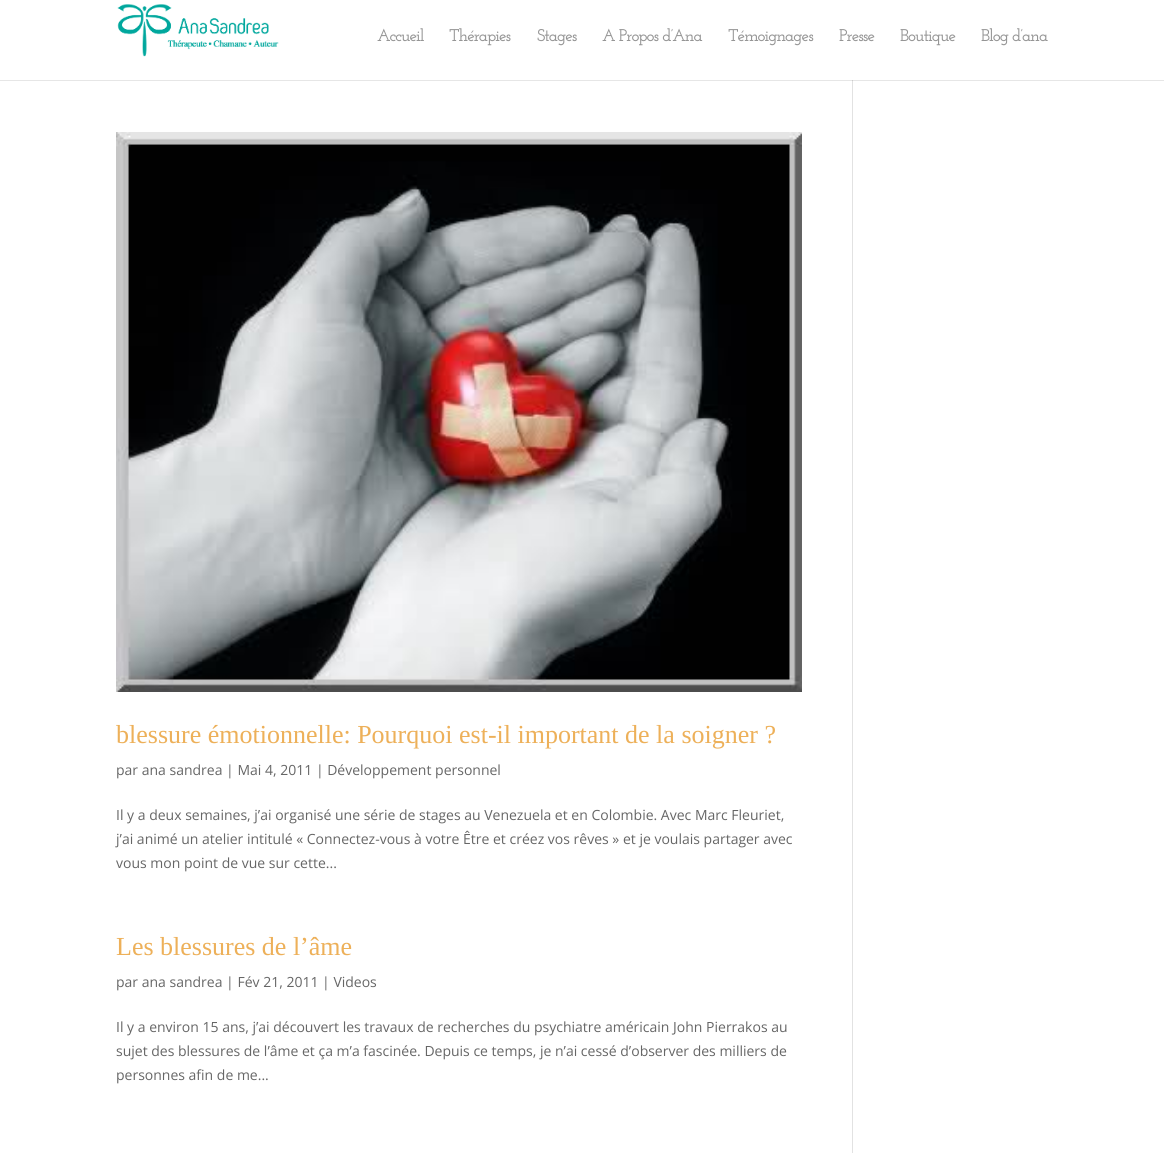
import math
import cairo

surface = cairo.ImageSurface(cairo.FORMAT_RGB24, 1164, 1153)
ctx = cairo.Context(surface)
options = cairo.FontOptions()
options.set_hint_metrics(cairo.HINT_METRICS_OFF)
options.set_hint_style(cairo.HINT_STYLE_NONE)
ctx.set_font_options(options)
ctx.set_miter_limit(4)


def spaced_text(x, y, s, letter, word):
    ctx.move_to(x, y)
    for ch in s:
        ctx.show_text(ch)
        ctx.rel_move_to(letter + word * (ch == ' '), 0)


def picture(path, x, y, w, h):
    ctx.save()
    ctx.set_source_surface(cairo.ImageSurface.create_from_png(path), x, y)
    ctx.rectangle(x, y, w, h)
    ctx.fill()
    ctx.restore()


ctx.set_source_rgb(1, 1, 1)
ctx.paint()
ctx.set_source_rgb(0.902, 0.902, 0.902)
ctx.rectangle(0, 80, 1164, 1)
ctx.fill()
ctx.set_source_rgb(0.886, 0.886, 0.886)
ctx.rectangle(852, 74, 1, 1079)
ctx.fill()
ctx.set_source_rgb(1, 1, 1)
ctx.rectangle(852, 74, 1, 6)
ctx.fill()
picture("img1.png", 117, 4, 162, 53)
ctx.select_font_face("Josefin Slab SemiBold")
ctx.set_font_size(17)
ctx.set_source_rgb(0.584, 0.584, 0.584)
spaced_text(377, 41, "Accueil", -1, 0)
spaced_text(449, 41, "Thérapies", -1, 0)
spaced_text(537, 41, "Stages", -1, 0)
spaced_text(602, 41, "A Propos d’Ana", -1, 0)
spaced_text(728, 41, "Témoignages", -1, 0)
spaced_text(839, 41, "Presse", -1, 0)
spaced_text(900, 41, "Boutique", -1, 0)
spaced_text(981, 41, "Blog d’ana", -1, 0)
picture("img2.png", 116, 132, 686, 560)
ctx.select_font_face("Liberation Serif")
ctx.set_font_size(26)
ctx.set_source_rgb(0.929, 0.69, 0.349)
ctx.move_to(116, 743)
ctx.show_text("blessure émotionnelle: Pourquoi est-il important de la soigner ?")
ctx.select_font_face("Open Sans")
ctx.set_font_size(14)
ctx.set_source_rgb(0.4, 0.4, 0.4)
ctx.move_to(116, 775)
ctx.show_text("par ana sandrea | Mai 4, 2011 | Développement personnel")
ctx.move_to(116, 820)
ctx.show_text("Il y a deux semaines, j’ai organisé une série de stages au Venezuela et en Colombie. Avec Marc Fleuriet,")
ctx.move_to(116, 844)
ctx.show_text("j’ai animé un atelier intitulé « Connectez-vous à votre Être et créez vos rêves » et je voulais partager avec")
ctx.move_to(116, 868)
ctx.show_text("vous mon point de vue sur cette...")
ctx.select_font_face("Liberation Serif")
ctx.set_font_size(26)
ctx.set_source_rgb(0.929, 0.69, 0.349)
ctx.move_to(116, 955)
ctx.show_text("Les blessures de l’âme")
ctx.select_font_face("Open Sans")
ctx.set_font_size(14)
ctx.set_source_rgb(0.4, 0.4, 0.4)
ctx.move_to(116, 987)
ctx.show_text("par ana sandrea | Fév 21, 2011 | Videos")
ctx.move_to(116, 1032)
ctx.show_text("Il y a environ 15 ans, j’ai découvert les travaux de recherches du psychiatre américain John Pierrakos au")
ctx.move_to(116, 1056)
ctx.show_text("sujet des blessures de l’âme et ça m’a fascinée. Depuis ce temps, je n’ai cessé d’observer des milliers de")
ctx.move_to(116, 1080)
ctx.show_text("personnes afin de me...")
ctx.set_source_rgb(0.796, 0.796, 0.796)
ctx.rectangle(852, 80, 1, 1)
ctx.fill()
surface.write_to_png("page.png")
